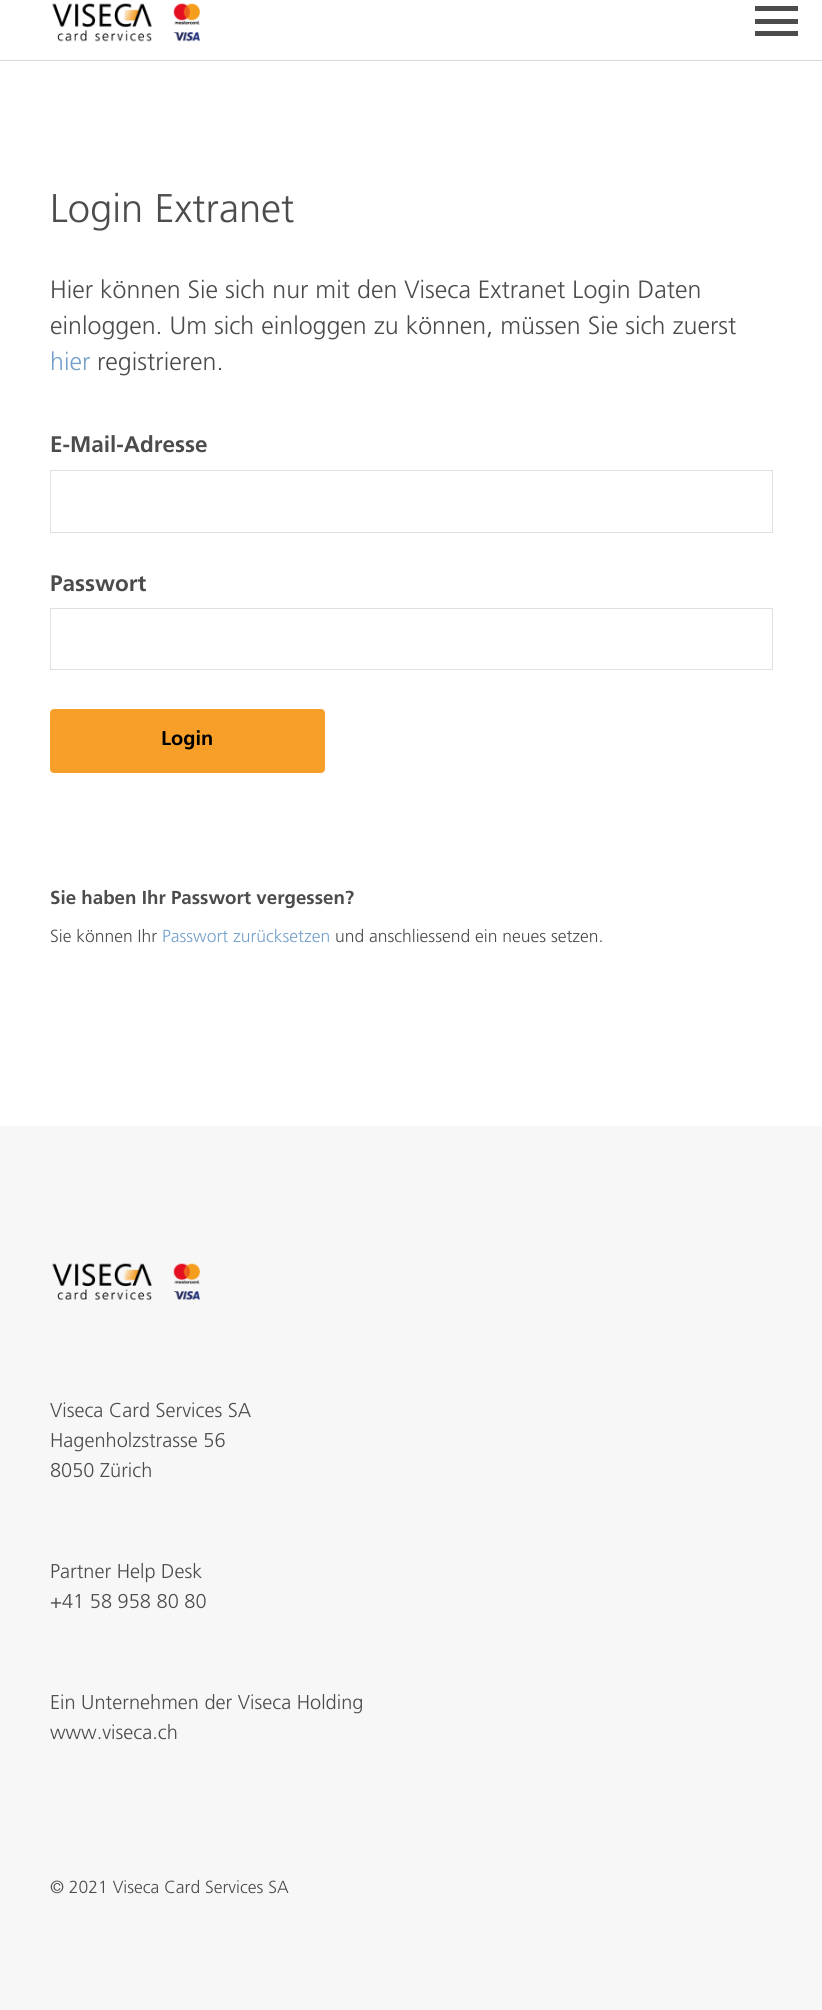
import math
import cairo

surface = cairo.ImageSurface(cairo.FORMAT_RGB24, 822, 2010)
ctx = cairo.Context(surface)
options = cairo.FontOptions()
options.set_hint_metrics(cairo.HINT_METRICS_OFF)
options.set_hint_style(cairo.HINT_STYLE_NONE)
ctx.set_font_options(options)
ctx.set_miter_limit(4)


def round_rect(x, y, w, h, r):
    ctx.new_sub_path()
    for i, (u, v) in enumerate([(x + w - r, y + h - r), (x + r, y + h - r), (x + r, y + r), (x + w - r, y + r)]):
        ctx.arc(u, v, r, i * math.pi / 2, (i + 1) * math.pi / 2)
    ctx.close_path()


def picture(path, x, y, w, h):
    ctx.save()
    ctx.set_source_surface(cairo.ImageSurface.create_from_png(path), x, y)
    ctx.rectangle(x, y, w, h)
    ctx.fill()
    ctx.restore()


ctx.set_source_rgb(1, 1, 1)
ctx.paint()
ctx.set_source_rgb(0.847, 0.847, 0.847)
ctx.rectangle(0, 60, 822, 1)
ctx.fill()
picture("img1.png", 52, 3, 148, 39)
ctx.set_source_rgb(0.298, 0.298, 0.298)
ctx.rectangle(755, 6, 43, 5)
ctx.fill()
ctx.rectangle(755, 19, 43, 5)
ctx.fill()
ctx.rectangle(755, 31, 43, 5)
ctx.fill()
ctx.select_font_face("Frutiger Light")
ctx.set_font_size(40)
ctx.move_to(50, 222)
ctx.show_text("Login Extranet")
ctx.set_font_size(25)
ctx.move_to(50, 298)
ctx.show_text("Hier können Sie sich nur mit den Viseca Extranet Login Daten")
ctx.move_to(50, 334)
ctx.show_text("einloggen. Um sich einloggen zu können, müssen Sie sich zuerst")
ctx.set_source_rgb(0.455, 0.627, 0.792)
ctx.move_to(50, 370)
ctx.show_text("hier")
ctx.set_source_rgb(0.298, 0.298, 0.298)
ctx.move_to(97, 370)
ctx.show_text("registrieren.")
ctx.select_font_face("Frutiger", cairo.FONT_SLANT_NORMAL, cairo.FONT_WEIGHT_BOLD)
ctx.set_font_size(22.5)
ctx.move_to(50, 452)
ctx.show_text("E-Mail-Adresse")
ctx.rectangle(50.5, 470.5, 722, 62)
ctx.set_source_rgb(0.878, 0.878, 0.878)
ctx.set_line_width(1)
ctx.stroke()
ctx.set_source_rgb(0.298, 0.298, 0.298)
ctx.move_to(50, 591)
ctx.show_text("Passwort")
ctx.rectangle(50.5, 608.5, 722, 61)
ctx.set_source_rgb(0.878, 0.878, 0.878)
ctx.stroke()
ctx.set_source_rgb(0.965, 0.624, 0.161)
round_rect(51.5, 710.5, 272, 61, 2.5)
ctx.fill_preserve()
ctx.set_line_width(3)
ctx.stroke()
ctx.set_font_size(20)
ctx.set_source_rgb(0, 0, 0)
ctx.move_to(161, 745)
ctx.show_text("Login")
ctx.set_font_size(18.75)
ctx.set_source_rgb(0.298, 0.298, 0.298)
ctx.move_to(50, 904)
ctx.show_text("Sie haben Ihr Passwort vergessen?")
ctx.select_font_face("Frutiger Light")
ctx.set_font_size(17.5)
ctx.move_to(50, 942)
ctx.show_text("Sie können Ihr")
ctx.set_source_rgb(0.455, 0.627, 0.792)
ctx.move_to(162, 942)
ctx.show_text("Passwort zurücksetzen")
ctx.set_source_rgb(0.298, 0.298, 0.298)
ctx.move_to(335, 942)
ctx.show_text("und anschliessend ein neues setzen.")
ctx.set_source_rgb(0.965, 0.965, 0.965)
ctx.rectangle(0, 1126, 822, 884)
ctx.fill()
picture("img2.png", 52, 1263, 148, 37)
ctx.set_font_size(20)
ctx.set_source_rgb(0.298, 0.298, 0.298)
ctx.move_to(50, 1417)
ctx.show_text("Viseca Card Services SA")
ctx.move_to(50, 1447)
ctx.show_text("Hagenholzstrasse 56")
ctx.move_to(50, 1477)
ctx.show_text("8050 Zürich")
ctx.move_to(50, 1578)
ctx.show_text("Partner Help Desk")
ctx.move_to(50, 1608)
ctx.show_text("+41 58 958 80 80")
ctx.move_to(50, 1709)
ctx.show_text("Ein Unternehmen der Viseca Holding")
ctx.move_to(50, 1739)
ctx.show_text("www.viseca.ch")
ctx.set_font_size(17.5)
ctx.move_to(50, 1893)
ctx.show_text("© 2021 Viseca Card Services SA")
surface.write_to_png("page.png")
